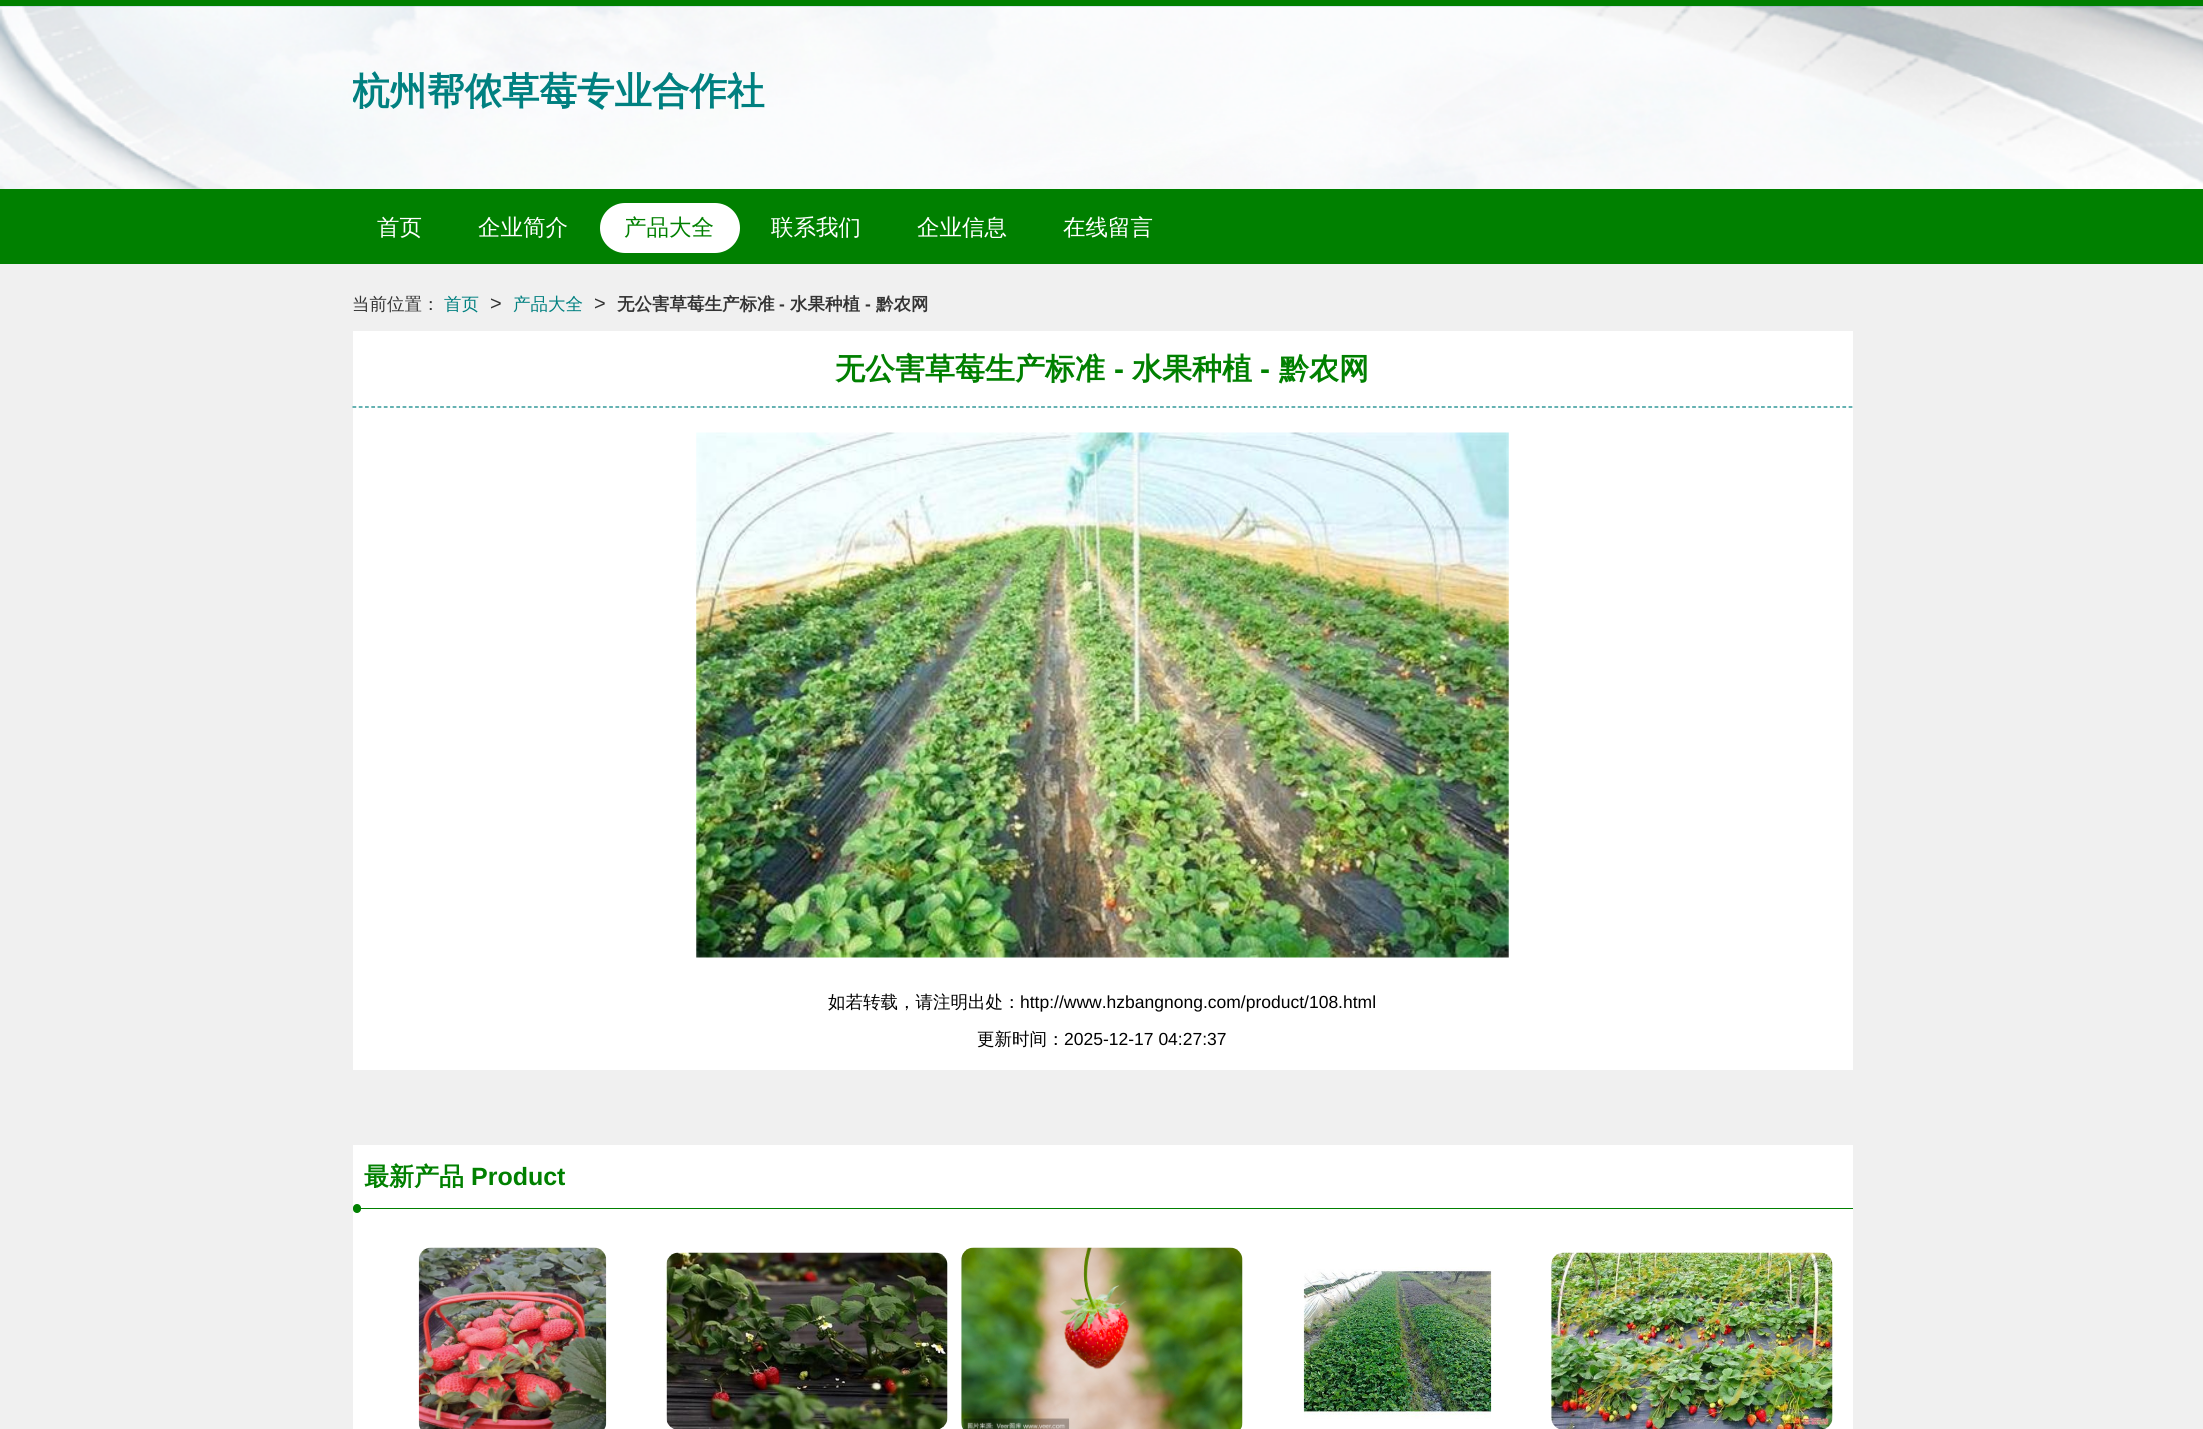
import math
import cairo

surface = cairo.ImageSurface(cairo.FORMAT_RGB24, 2203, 1429)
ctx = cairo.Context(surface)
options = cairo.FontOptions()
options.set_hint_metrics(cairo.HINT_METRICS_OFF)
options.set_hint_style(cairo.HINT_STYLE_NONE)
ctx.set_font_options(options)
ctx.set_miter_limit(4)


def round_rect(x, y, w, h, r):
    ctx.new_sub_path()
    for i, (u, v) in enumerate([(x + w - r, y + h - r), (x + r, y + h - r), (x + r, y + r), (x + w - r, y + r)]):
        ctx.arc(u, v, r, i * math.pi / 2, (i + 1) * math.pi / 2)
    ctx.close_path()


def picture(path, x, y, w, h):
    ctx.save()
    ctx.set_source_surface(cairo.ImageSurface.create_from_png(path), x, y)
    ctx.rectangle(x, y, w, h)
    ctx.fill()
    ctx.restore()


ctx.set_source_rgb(0.941, 0.941, 0.941)
ctx.paint()
picture("img1.png", 0, 6, 2203, 183)
ctx.set_source_rgb(0, 0.502, 0)
ctx.rectangle(0, 0, 2203, 6)
ctx.fill()
ctx.save()
ctx.rectangle(353, 6, 1500, 112)
ctx.clip()
ctx.select_font_face("WenQuanYi Zen Hei", cairo.FONT_SLANT_NORMAL, cairo.FONT_WEIGHT_BOLD)
ctx.set_font_size(37.5)
ctx.set_source_rgb(0, 0.502, 0.502)
ctx.move_to(352, 104)
ctx.show_text("杭州帮侬草莓专业合作社")
ctx.restore()
ctx.rectangle(0, 189, 2203, 75)
ctx.fill()
ctx.select_font_face("WenQuanYi Zen Hei Medium")
ctx.set_font_size(22.5)
ctx.set_source_rgb(1, 1, 1)
ctx.move_to(377, 235)
ctx.show_text("首页")
ctx.move_to(478, 235)
ctx.show_text("企业简介")
round_rect(600, 203, 140, 50, 25)
ctx.fill()
ctx.set_source_rgb(0, 0.502, 0)
ctx.move_to(624, 235)
ctx.show_text("产品大全")
ctx.set_source_rgb(1, 1, 1)
ctx.move_to(771, 235)
ctx.show_text("联系我们")
ctx.move_to(917, 235)
ctx.show_text("企业信息")
ctx.move_to(1063, 235)
ctx.show_text("在线留言")
ctx.set_font_size(17.5)
ctx.set_source_rgb(0.2, 0.2, 0.2)
ctx.move_to(352, 310)
ctx.show_text("当前位置：")
ctx.set_source_rgb(0, 0.502, 0.502)
ctx.move_to(444, 310)
ctx.show_text("首页")
ctx.select_font_face("Liberation Sans")
ctx.set_font_size(20)
ctx.set_source_rgb(0.2, 0.2, 0.2)
ctx.move_to(490, 310)
ctx.show_text(">")
ctx.select_font_face("WenQuanYi Zen Hei Medium")
ctx.set_font_size(17.5)
ctx.set_source_rgb(0, 0.502, 0.502)
ctx.move_to(513, 310)
ctx.show_text("产品大全")
ctx.select_font_face("Liberation Sans")
ctx.set_font_size(20)
ctx.set_source_rgb(0.2, 0.2, 0.2)
ctx.move_to(594, 310)
ctx.show_text(">")
ctx.select_font_face("WenQuanYi Zen Hei", cairo.FONT_SLANT_NORMAL, cairo.FONT_WEIGHT_BOLD)
ctx.set_font_size(17.5)
ctx.move_to(617, 310)
ctx.show_text("无公害草莓生产标准")
ctx.select_font_face("Liberation Sans", cairo.FONT_SLANT_NORMAL, cairo.FONT_WEIGHT_BOLD)
ctx.move_to(779, 310)
ctx.show_text("-")
ctx.select_font_face("WenQuanYi Zen Hei", cairo.FONT_SLANT_NORMAL, cairo.FONT_WEIGHT_BOLD)
ctx.move_to(790, 310)
ctx.show_text("水果种植")
ctx.select_font_face("Liberation Sans", cairo.FONT_SLANT_NORMAL, cairo.FONT_WEIGHT_BOLD)
ctx.move_to(865, 310)
ctx.show_text("-")
ctx.select_font_face("WenQuanYi Zen Hei", cairo.FONT_SLANT_NORMAL, cairo.FONT_WEIGHT_BOLD)
ctx.move_to(876, 310)
ctx.show_text("黔农网")
ctx.set_source_rgb(1, 1, 1)
ctx.rectangle(353, 331, 1500, 739)
ctx.fill()
ctx.new_path()
ctx.move_to(352.5, 407)
ctx.line_to(1852.5, 407)
ctx.set_source_rgb(0, 0.502, 0.502)
ctx.set_line_width(1.2)
ctx.set_dash([3.75, 2.51])
ctx.stroke()
ctx.set_font_size(30)
ctx.set_source_rgb(0, 0.502, 0)
ctx.move_to(835, 379)
ctx.show_text("无公害草莓生产标准")
ctx.select_font_face("Liberation Sans", cairo.FONT_SLANT_NORMAL, cairo.FONT_WEIGHT_BOLD)
ctx.move_to(1114, 379)
ctx.show_text("-")
ctx.select_font_face("WenQuanYi Zen Hei", cairo.FONT_SLANT_NORMAL, cairo.FONT_WEIGHT_BOLD)
ctx.move_to(1132, 379)
ctx.show_text("水果种植")
ctx.select_font_face("Liberation Sans", cairo.FONT_SLANT_NORMAL, cairo.FONT_WEIGHT_BOLD)
ctx.move_to(1260, 379)
ctx.show_text("-")
ctx.select_font_face("WenQuanYi Zen Hei", cairo.FONT_SLANT_NORMAL, cairo.FONT_WEIGHT_BOLD)
ctx.move_to(1279, 379)
ctx.show_text("黔农网")
picture("img2.png", 696, 432, 813, 526)
ctx.select_font_face("WenQuanYi Zen Hei Medium")
ctx.set_font_size(17.5)
ctx.set_source_rgb(0, 0, 0)
ctx.move_to(828, 1008)
ctx.show_text("如若转载，请注明出处：")
ctx.select_font_face("Liberation Sans")
ctx.move_to(1020, 1008)
ctx.show_text("http://www.hzbangnong.com/product/108.html")
ctx.select_font_face("WenQuanYi Zen Hei Medium")
ctx.move_to(977, 1045)
ctx.show_text("更新时间：")
ctx.select_font_face("Liberation Sans")
ctx.move_to(1064, 1045)
ctx.show_text("2025-12-17 04:27:37")
ctx.set_source_rgb(1, 1, 1)
ctx.rectangle(353, 1145, 1500, 284)
ctx.fill()
ctx.set_source_rgb(0, 0.502, 0)
ctx.rectangle(353, 1208, 1500, 1)
ctx.fill()
ctx.select_font_face("WenQuanYi Zen Hei", cairo.FONT_SLANT_NORMAL, cairo.FONT_WEIGHT_BOLD)
ctx.set_font_size(25)
ctx.move_to(364, 1185)
ctx.show_text("最新产品")
ctx.select_font_face("Liberation Sans", cairo.FONT_SLANT_NORMAL, cairo.FONT_WEIGHT_BOLD)
ctx.move_to(471, 1185)
ctx.show_text("Product")
round_rect(353, 1204, 8, 9, 4)
ctx.fill()
picture("img3.png", 418, 1247, 189, 182)
picture("img4.png", 666, 1252, 282, 177)
picture("img5.png", 961, 1247, 282, 182)
picture("img6.png", 1303, 1267, 189, 152)
picture("img7.png", 1551, 1252, 282, 177)
surface.write_to_png("page.png")
